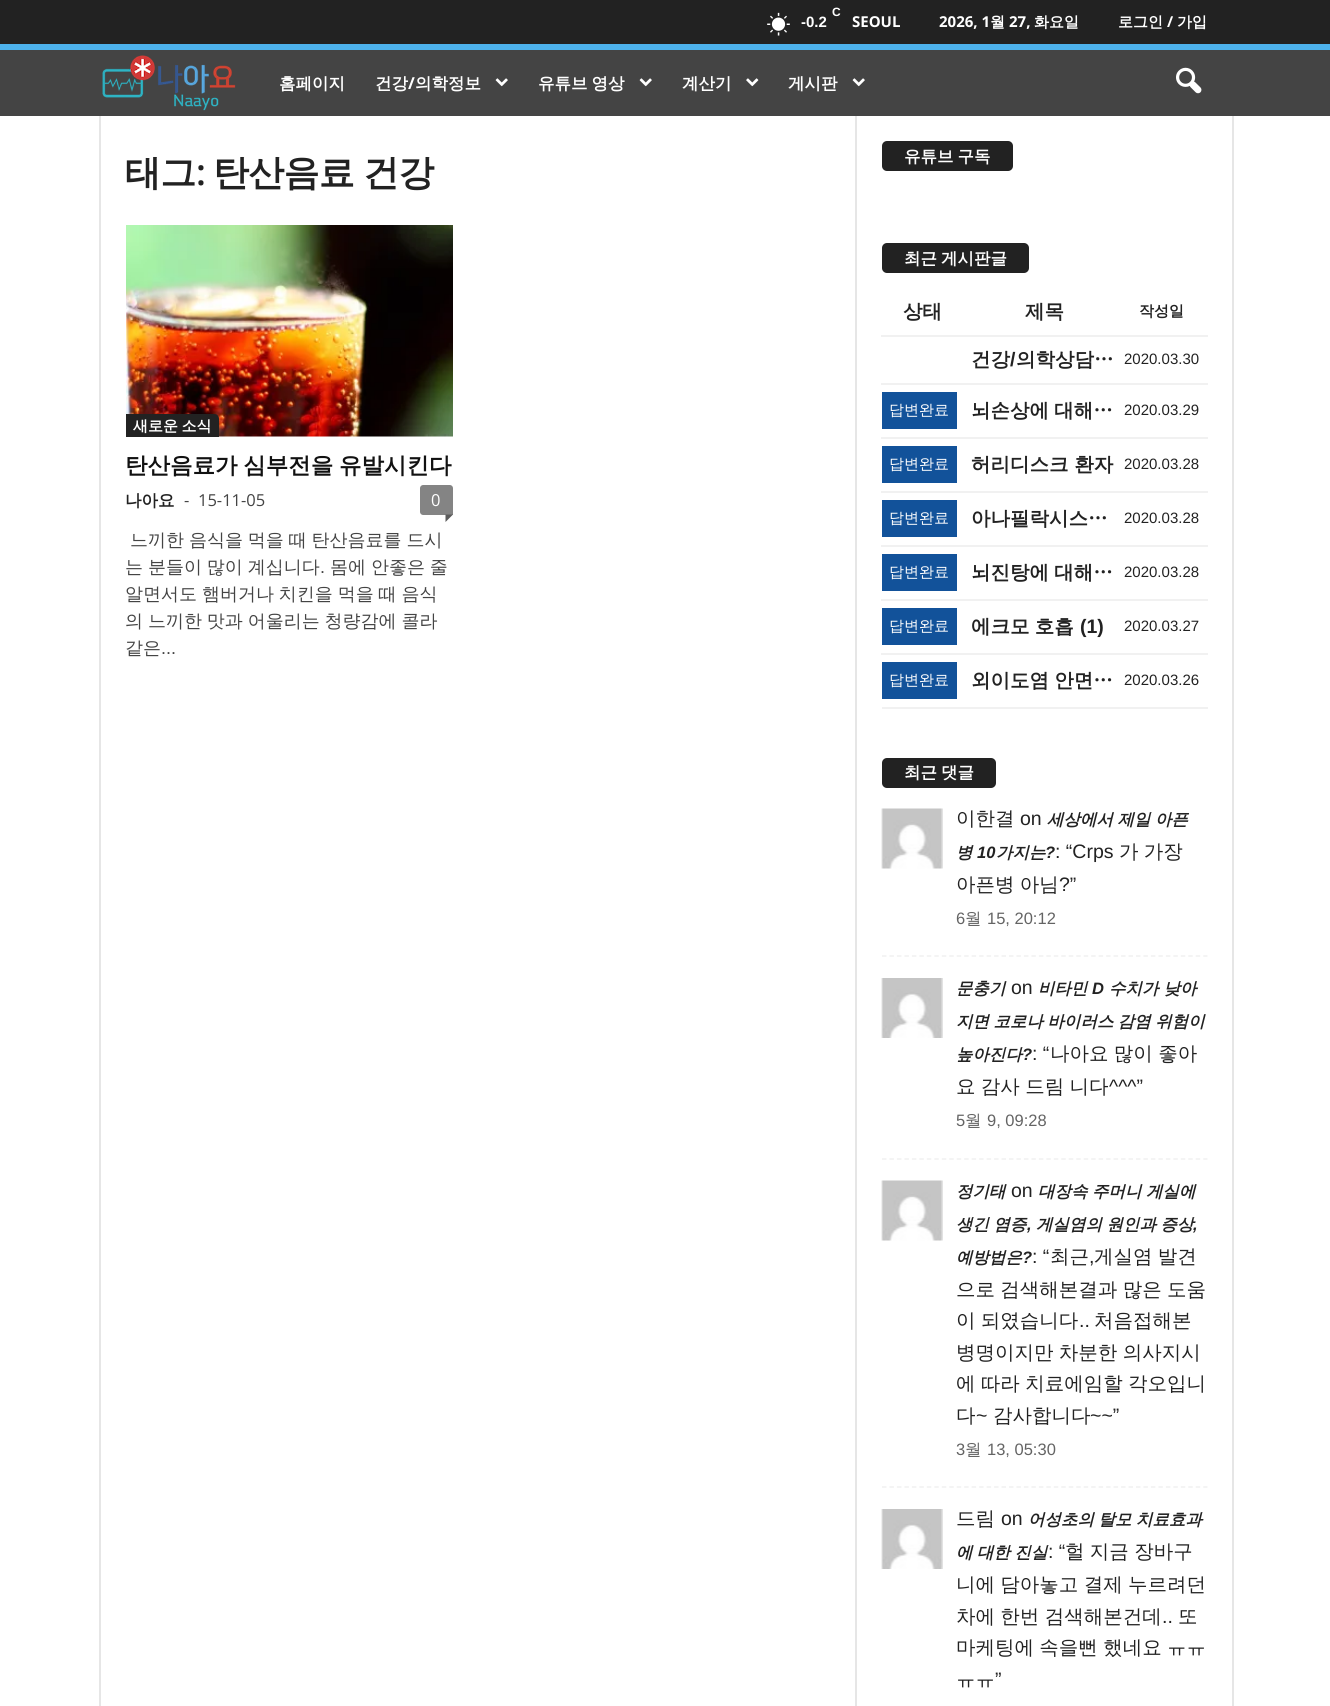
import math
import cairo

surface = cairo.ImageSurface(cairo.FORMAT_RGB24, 1330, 1706)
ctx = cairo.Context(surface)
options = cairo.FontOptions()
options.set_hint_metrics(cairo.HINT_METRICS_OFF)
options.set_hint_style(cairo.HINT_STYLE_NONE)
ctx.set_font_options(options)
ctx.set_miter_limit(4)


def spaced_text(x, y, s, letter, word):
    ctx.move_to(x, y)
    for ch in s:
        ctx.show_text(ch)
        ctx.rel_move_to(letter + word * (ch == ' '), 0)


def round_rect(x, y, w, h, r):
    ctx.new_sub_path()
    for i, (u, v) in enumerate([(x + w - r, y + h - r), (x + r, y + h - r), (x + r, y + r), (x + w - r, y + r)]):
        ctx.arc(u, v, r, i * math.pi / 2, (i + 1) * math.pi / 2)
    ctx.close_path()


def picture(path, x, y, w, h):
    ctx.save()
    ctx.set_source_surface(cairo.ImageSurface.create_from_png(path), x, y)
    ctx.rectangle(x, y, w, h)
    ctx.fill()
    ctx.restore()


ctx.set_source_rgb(1, 1, 1)
ctx.paint()
ctx.set_source_rgb(0.133, 0.133, 0.133)
ctx.rectangle(0, 0, 1330, 44)
ctx.fill()
picture("img1.png", 767, 12, 23, 24)
ctx.select_font_face("Liberation Sans", cairo.FONT_SLANT_NORMAL, cairo.FONT_WEIGHT_BOLD)
ctx.set_font_size(12)
ctx.set_source_rgb(1, 1, 1)
ctx.move_to(832, 16)
ctx.show_text("C")
ctx.set_font_size(15)
ctx.move_to(801, 27)
ctx.show_text("-0.2")
ctx.select_font_face("Open Sans", cairo.FONT_SLANT_NORMAL, cairo.FONT_WEIGHT_BOLD)
ctx.move_to(852, 27)
ctx.show_text("SEOUL")
ctx.move_to(939, 27)
ctx.show_text("2026, 1")
ctx.select_font_face("WenQuanYi Zen Hei", cairo.FONT_SLANT_NORMAL, cairo.FONT_WEIGHT_BOLD)
ctx.move_to(990, 27)
ctx.show_text("월")
ctx.select_font_face("Open Sans", cairo.FONT_SLANT_NORMAL, cairo.FONT_WEIGHT_BOLD)
ctx.move_to(1009, 27)
ctx.show_text("27,")
ctx.select_font_face("WenQuanYi Zen Hei", cairo.FONT_SLANT_NORMAL, cairo.FONT_WEIGHT_BOLD)
ctx.move_to(1034, 27)
ctx.show_text("화요일")
ctx.move_to(1118, 27)
ctx.show_text("로그인")
ctx.select_font_face("Open Sans", cairo.FONT_SLANT_NORMAL, cairo.FONT_WEIGHT_BOLD)
ctx.move_to(1167, 27)
ctx.show_text("/")
ctx.select_font_face("WenQuanYi Zen Hei", cairo.FONT_SLANT_NORMAL, cairo.FONT_WEIGHT_BOLD)
ctx.move_to(1177, 27)
ctx.show_text("가입")
ctx.set_source_rgb(0.267, 0.267, 0.267)
ctx.rectangle(0, 50, 1330, 66)
ctx.fill()
ctx.set_source_rgb(0.302, 0.698, 0.925)
ctx.rectangle(0, 44, 1330, 6)
ctx.fill()
picture("img2.png", 102, 55, 134, 56)
ctx.set_font_size(16.5)
ctx.set_source_rgb(1, 1, 1)
ctx.move_to(279, 89)
ctx.show_text("홈페이지")
ctx.move_to(375, 89)
ctx.show_text("건강")
ctx.select_font_face("Open Sans", cairo.FONT_SLANT_NORMAL, cairo.FONT_WEIGHT_BOLD)
ctx.move_to(408, 89)
ctx.show_text("/")
ctx.select_font_face("WenQuanYi Zen Hei", cairo.FONT_SLANT_NORMAL, cairo.FONT_WEIGHT_BOLD)
ctx.move_to(415, 89)
ctx.show_text("의학정보")
picture("img3.png", 495, 78, 13, 9)
spaced_text(538, 89, "유튜브 영상", 0, -1)
picture("img3.png", 639, 78, 13, 9)
ctx.move_to(682, 89)
ctx.show_text("계산기")
picture("img4.png", 746, 78, 13, 9)
ctx.move_to(788, 89)
ctx.show_text("게시판")
picture("img3.png", 852, 78, 13, 9)
picture("img5.png", 1176, 67, 26, 27)
ctx.set_source_rgb(0.902, 0.902, 0.902)
ctx.rectangle(99, 116, 2, 1590)
ctx.fill()
ctx.set_font_size(36)
ctx.set_source_rgb(0.133, 0.133, 0.133)
spaced_text(125, 185, "태그", -0.75, 0)
ctx.select_font_face("Open Sans SemiBold")
spaced_text(196, 185, ":", -0.75, 0)
ctx.select_font_face("WenQuanYi Zen Hei", cairo.FONT_SLANT_NORMAL, cairo.FONT_WEIGHT_BOLD)
spaced_text(213, 185, "탄산음료 건강", -0.75, -1)
picture("img6.png", 126, 225, 327, 212)
ctx.new_path()
ctx.move_to(126, 414)
ctx.line_to(214, 414)
ctx.curve_to(217, 414, 219, 416, 219, 419)
ctx.line_to(219, 437)
ctx.line_to(126, 437)
ctx.close_path()
ctx.fill()
ctx.set_font_size(15)
ctx.set_source_rgb(1, 1, 1)
spaced_text(133, 431, "새로운 소식", 0, -1)
ctx.set_font_size(22.5)
ctx.set_source_rgb(0.067, 0.067, 0.067)
spaced_text(125, 473, "탄산음료가 심부전을 유발시킨다", 0, -1)
ctx.set_font_size(16.5)
ctx.set_source_rgb(0.133, 0.133, 0.133)
ctx.move_to(125, 506)
ctx.show_text("나아요")
ctx.select_font_face("Open Sans")
ctx.set_source_rgb(0.267, 0.267, 0.267)
ctx.move_to(184, 506)
ctx.show_text("-")
ctx.move_to(198, 506)
ctx.show_text("15-11-05")
ctx.set_source_rgb(0.518, 0.518, 0.518)
ctx.new_path()
ctx.move_to(423, 485)
ctx.line_to(450, 485)
ctx.curve_to(451.5, 485, 453, 486.5, 453, 488)
ctx.line_to(453, 515)
ctx.line_to(423, 515)
ctx.curve_to(421.5, 515, 420, 513.5, 420, 512)
ctx.line_to(420, 488)
ctx.curve_to(420, 486.5, 421.5, 485, 423, 485)
ctx.close_path()
ctx.fill()
ctx.set_source_rgb(1, 1, 1)
ctx.move_to(431, 506)
ctx.show_text("0")
ctx.set_source_rgb(0.357, 0.357, 0.357)
ctx.new_path()
ctx.move_to(445.5, 514.5)
ctx.line_to(453, 514.5)
ctx.line_to(445.5, 522)
ctx.close_path()
ctx.fill()
ctx.select_font_face("WenQuanYi Zen Hei Medium")
ctx.set_font_size(18)
ctx.set_source_rgb(0.267, 0.267, 0.267)
spaced_text(130, 546, "느끼한 음식을 먹을 때 탄산음료를 드시", 0, -0.5)
spaced_text(125, 573, "는 분들이 많이 계십니다", 0, -0.5)
ctx.select_font_face("Liberation Sans")
ctx.move_to(320, 573)
ctx.show_text(".")
ctx.select_font_face("WenQuanYi Zen Hei Medium")
spaced_text(330, 573, "몸에 안좋은 줄", 0, -0.5)
spaced_text(125, 600, "알면서도 햄버거나 치킨을 먹을 때 음식", 0, -0.5)
spaced_text(125, 627, "의 느끼한 맛과 어울리는 청량감에 콜라", 0, -0.5)
ctx.move_to(125, 654)
ctx.show_text("같은")
ctx.select_font_face("Liberation Sans")
ctx.move_to(161, 654)
ctx.show_text("...")
ctx.set_source_rgb(0.902, 0.902, 0.902)
ctx.rectangle(855, 116, 2, 1590)
ctx.fill()
ctx.set_source_rgb(0.133, 0.133, 0.133)
round_rect(882, 141, 131, 30, 5)
ctx.fill()
ctx.select_font_face("WenQuanYi Zen Hei", cairo.FONT_SLANT_NORMAL, cairo.FONT_WEIGHT_BOLD)
ctx.set_font_size(16.5)
ctx.set_source_rgb(1, 1, 1)
spaced_text(904, 162, "유튜브 구독", 0, -1)
ctx.set_source_rgb(0.133, 0.133, 0.133)
round_rect(882, 243, 147, 30, 5)
ctx.fill()
ctx.set_source_rgb(1, 1, 1)
spaced_text(904, 264, "최근 게시판글", 0, -1)
ctx.set_source_rgb(0.945, 0.945, 0.945)
ctx.rectangle(882, 707, 326, 2)
ctx.fill()
ctx.set_font_size(19.5)
ctx.set_source_rgb(0.133, 0.133, 0.133)
ctx.move_to(903, 318)
ctx.show_text("상태")
ctx.move_to(1025, 318)
ctx.show_text("제목")
ctx.set_font_size(15)
ctx.move_to(1139, 316)
ctx.show_text("작성일")
ctx.set_font_size(19.5)
ctx.move_to(971, 366)
ctx.show_text("건강")
ctx.select_font_face("Liberation Sans", cairo.FONT_SLANT_NORMAL, cairo.FONT_WEIGHT_BOLD)
ctx.move_to(1010, 366)
ctx.show_text("/")
ctx.select_font_face("WenQuanYi Zen Hei", cairo.FONT_SLANT_NORMAL, cairo.FONT_WEIGHT_BOLD)
spaced_text(1016, 366, "의학상담…", 0, -0.5)
ctx.set_source_rgb(0.945, 0.945, 0.945)
ctx.rectangle(881, 335, 327, 2)
ctx.fill()
ctx.select_font_face("Liberation Sans")
ctx.set_font_size(15)
ctx.set_source_rgb(0.133, 0.133, 0.133)
ctx.move_to(1124, 364)
ctx.show_text("2020.03.30")
ctx.set_source_rgb(0.071, 0.322, 0.604)
ctx.rectangle(882, 392, 75, 37)
ctx.fill()
ctx.select_font_face("WenQuanYi Zen Hei Medium")
ctx.set_source_rgb(1, 1, 1)
ctx.move_to(889, 415)
ctx.show_text("답변완료")
ctx.select_font_face("WenQuanYi Zen Hei", cairo.FONT_SLANT_NORMAL, cairo.FONT_WEIGHT_BOLD)
ctx.set_font_size(19.5)
ctx.set_source_rgb(0.133, 0.133, 0.133)
spaced_text(971, 417, "뇌손상에 대해…", 0, -0.5)
ctx.set_source_rgb(0.945, 0.945, 0.945)
ctx.rectangle(881, 383, 327, 2)
ctx.fill()
ctx.select_font_face("Liberation Sans")
ctx.set_font_size(15)
ctx.set_source_rgb(0.133, 0.133, 0.133)
ctx.move_to(1124, 415)
ctx.show_text("2020.03.29")
ctx.set_source_rgb(0.071, 0.322, 0.604)
ctx.rectangle(882, 446, 75, 37)
ctx.fill()
ctx.select_font_face("WenQuanYi Zen Hei Medium")
ctx.set_source_rgb(1, 1, 1)
ctx.move_to(889, 469)
ctx.show_text("답변완료")
ctx.select_font_face("WenQuanYi Zen Hei", cairo.FONT_SLANT_NORMAL, cairo.FONT_WEIGHT_BOLD)
ctx.set_font_size(19.5)
ctx.set_source_rgb(0.133, 0.133, 0.133)
ctx.move_to(971, 471)
ctx.show_text("허리디스크 환자")
ctx.set_source_rgb(0.945, 0.945, 0.945)
ctx.rectangle(881, 437, 327, 2)
ctx.fill()
ctx.select_font_face("Liberation Sans")
ctx.set_font_size(15)
ctx.set_source_rgb(0.133, 0.133, 0.133)
ctx.move_to(1124, 469)
ctx.show_text("2020.03.28")
ctx.set_source_rgb(0.071, 0.322, 0.604)
ctx.rectangle(882, 500, 75, 37)
ctx.fill()
ctx.select_font_face("WenQuanYi Zen Hei Medium")
ctx.set_source_rgb(1, 1, 1)
ctx.move_to(889, 523)
ctx.show_text("답변완료")
ctx.select_font_face("WenQuanYi Zen Hei", cairo.FONT_SLANT_NORMAL, cairo.FONT_WEIGHT_BOLD)
ctx.set_font_size(19.5)
ctx.set_source_rgb(0.133, 0.133, 0.133)
spaced_text(971, 525, "아나필락시스…", 0, -0.5)
ctx.set_source_rgb(0.945, 0.945, 0.945)
ctx.rectangle(881, 491, 327, 2)
ctx.fill()
ctx.select_font_face("Liberation Sans")
ctx.set_font_size(15)
ctx.set_source_rgb(0.133, 0.133, 0.133)
ctx.move_to(1124, 523)
ctx.show_text("2020.03.28")
ctx.set_source_rgb(0.071, 0.322, 0.604)
ctx.rectangle(882, 554, 75, 37)
ctx.fill()
ctx.select_font_face("WenQuanYi Zen Hei Medium")
ctx.set_source_rgb(1, 1, 1)
ctx.move_to(889, 577)
ctx.show_text("답변완료")
ctx.select_font_face("WenQuanYi Zen Hei", cairo.FONT_SLANT_NORMAL, cairo.FONT_WEIGHT_BOLD)
ctx.set_font_size(19.5)
ctx.set_source_rgb(0.133, 0.133, 0.133)
spaced_text(971, 579, "뇌진탕에 대해…", 0, -0.5)
ctx.set_source_rgb(0.945, 0.945, 0.945)
ctx.rectangle(881, 545, 327, 2)
ctx.fill()
ctx.select_font_face("Liberation Sans")
ctx.set_font_size(15)
ctx.set_source_rgb(0.133, 0.133, 0.133)
ctx.move_to(1124, 577)
ctx.show_text("2020.03.28")
ctx.set_source_rgb(0.071, 0.322, 0.604)
ctx.rectangle(882, 608, 75, 37)
ctx.fill()
ctx.select_font_face("WenQuanYi Zen Hei Medium")
ctx.set_source_rgb(1, 1, 1)
ctx.move_to(889, 631)
ctx.show_text("답변완료")
ctx.select_font_face("WenQuanYi Zen Hei", cairo.FONT_SLANT_NORMAL, cairo.FONT_WEIGHT_BOLD)
ctx.set_font_size(19.5)
ctx.set_source_rgb(0.133, 0.133, 0.133)
spaced_text(971, 633, "에크모 호흡", 0, -0.5)
ctx.select_font_face("Liberation Sans", cairo.FONT_SLANT_NORMAL, cairo.FONT_WEIGHT_BOLD)
ctx.move_to(1080, 633)
ctx.show_text("(1)")
ctx.set_source_rgb(0.945, 0.945, 0.945)
ctx.rectangle(881, 599, 327, 2)
ctx.fill()
ctx.select_font_face("Liberation Sans")
ctx.set_font_size(15)
ctx.set_source_rgb(0.133, 0.133, 0.133)
ctx.move_to(1124, 631)
ctx.show_text("2020.03.27")
ctx.set_source_rgb(0.071, 0.322, 0.604)
ctx.rectangle(882, 662, 75, 37)
ctx.fill()
ctx.select_font_face("WenQuanYi Zen Hei Medium")
ctx.set_source_rgb(1, 1, 1)
ctx.move_to(889, 685)
ctx.show_text("답변완료")
ctx.select_font_face("WenQuanYi Zen Hei", cairo.FONT_SLANT_NORMAL, cairo.FONT_WEIGHT_BOLD)
ctx.set_font_size(19.5)
ctx.set_source_rgb(0.133, 0.133, 0.133)
spaced_text(971, 687, "외이도염 안면…", 0, -0.5)
ctx.set_source_rgb(0.945, 0.945, 0.945)
ctx.rectangle(881, 653, 327, 2)
ctx.fill()
ctx.select_font_face("Liberation Sans")
ctx.set_font_size(15)
ctx.set_source_rgb(0.133, 0.133, 0.133)
ctx.move_to(1124, 685)
ctx.show_text("2020.03.26")
round_rect(882, 758, 114, 30, 5)
ctx.fill()
ctx.select_font_face("WenQuanYi Zen Hei", cairo.FONT_SLANT_NORMAL, cairo.FONT_WEIGHT_BOLD)
ctx.set_font_size(16.5)
ctx.set_source_rgb(1, 1, 1)
spaced_text(904, 778, "최근 댓글", 0, -1)
ctx.new_path()
ctx.move_to(882, 956)
ctx.line_to(1207.5, 956)
ctx.set_source_rgb(0.945, 0.945, 0.945)
ctx.set_line_width(1.5)
ctx.set_dash([4.5, 2.97])
ctx.stroke()
picture("img7.png", 881, 808, 62, 61)
ctx.select_font_face("WenQuanYi Zen Hei Medium")
ctx.set_font_size(19.5)
ctx.set_source_rgb(0.133, 0.133, 0.133)
ctx.move_to(956, 825)
ctx.show_text("이한결")
ctx.select_font_face("Liberation Sans")
ctx.move_to(1020, 825)
ctx.show_text("on")
ctx.select_font_face("WenQuanYi Zen Hei", cairo.FONT_SLANT_ITALIC, cairo.FONT_WEIGHT_BOLD)
ctx.set_font_size(16.5)
spaced_text(1047, 825, "세상에서 제일 아픈", 0, -0.5)
ctx.move_to(956, 858)
ctx.show_text("병")
ctx.select_font_face("Liberation Sans", cairo.FONT_SLANT_ITALIC, cairo.FONT_WEIGHT_BOLD)
ctx.move_to(977, 858)
ctx.show_text("10")
ctx.select_font_face("WenQuanYi Zen Hei", cairo.FONT_SLANT_ITALIC, cairo.FONT_WEIGHT_BOLD)
ctx.move_to(996, 858)
ctx.show_text("가지는")
ctx.select_font_face("Liberation Sans", cairo.FONT_SLANT_ITALIC, cairo.FONT_WEIGHT_BOLD)
ctx.move_to(1045, 858)
ctx.show_text("?")
ctx.select_font_face("Liberation Sans")
ctx.set_font_size(19.5)
ctx.move_to(1055, 858)
ctx.show_text(": “Crps")
ctx.select_font_face("WenQuanYi Zen Hei Medium")
spaced_text(1119, 858, "가 가장", 0, -0.5)
spaced_text(956, 891, "아픈병 아님", 0, -0.5)
ctx.select_font_face("Liberation Sans")
ctx.move_to(1059, 891)
ctx.show_text("?”")
ctx.set_font_size(16.5)
ctx.set_source_rgb(0.392, 0.392, 0.392)
ctx.move_to(956, 924)
ctx.show_text("6")
ctx.select_font_face("WenQuanYi Zen Hei Medium")
ctx.move_to(965, 924)
ctx.show_text("월")
ctx.select_font_face("Liberation Sans")
ctx.move_to(987, 924)
ctx.show_text("15, 20:12")
ctx.new_path()
ctx.move_to(882, 1159)
ctx.line_to(1207.5, 1159)
ctx.set_source_rgb(0.945, 0.945, 0.945)
ctx.stroke()
picture("img8.png", 881, 978, 62, 60)
ctx.select_font_face("WenQuanYi Zen Hei", cairo.FONT_SLANT_ITALIC, cairo.FONT_WEIGHT_BOLD)
ctx.set_source_rgb(0.133, 0.133, 0.133)
ctx.move_to(956, 994)
ctx.show_text("문충기")
ctx.select_font_face("Liberation Sans")
ctx.set_font_size(19.5)
ctx.move_to(1011, 994)
ctx.show_text("on")
ctx.select_font_face("WenQuanYi Zen Hei", cairo.FONT_SLANT_ITALIC, cairo.FONT_WEIGHT_BOLD)
ctx.set_font_size(16.5)
ctx.move_to(1038, 994)
ctx.show_text("비타민")
ctx.select_font_face("Liberation Sans", cairo.FONT_SLANT_ITALIC, cairo.FONT_WEIGHT_BOLD)
ctx.move_to(1092, 994)
ctx.show_text("D")
ctx.select_font_face("WenQuanYi Zen Hei", cairo.FONT_SLANT_ITALIC, cairo.FONT_WEIGHT_BOLD)
ctx.move_to(1109, 994)
ctx.show_text("수치가 낮아")
spaced_text(956, 1027, "지면 코로나 바이러스 감염 위험이", 0, -0.5)
ctx.move_to(956, 1060)
ctx.show_text("높아진다")
ctx.select_font_face("Liberation Sans", cairo.FONT_SLANT_ITALIC, cairo.FONT_WEIGHT_BOLD)
ctx.move_to(1022, 1060)
ctx.show_text("?")
ctx.select_font_face("Liberation Sans")
ctx.set_font_size(19.5)
ctx.move_to(1032, 1060)
ctx.show_text(": “")
ctx.select_font_face("WenQuanYi Zen Hei Medium")
spaced_text(1050, 1060, "나아요 많이 좋아", 0, -0.5)
spaced_text(956, 1093, "요 감사 드림 니다", 0, -0.5)
ctx.select_font_face("Liberation Sans")
ctx.move_to(1109, 1093)
ctx.show_text("^^^”")
ctx.set_font_size(16.5)
ctx.set_source_rgb(0.392, 0.392, 0.392)
ctx.move_to(956, 1126)
ctx.show_text("5")
ctx.select_font_face("WenQuanYi Zen Hei Medium")
ctx.move_to(965, 1126)
ctx.show_text("월")
ctx.select_font_face("Liberation Sans")
ctx.move_to(987, 1126)
ctx.show_text("9, 09:28")
ctx.new_path()
ctx.move_to(882, 1487)
ctx.line_to(1207.5, 1487)
ctx.set_source_rgb(0.945, 0.945, 0.945)
ctx.stroke()
picture("img7.png", 881, 1180, 62, 61)
ctx.select_font_face("WenQuanYi Zen Hei", cairo.FONT_SLANT_ITALIC, cairo.FONT_WEIGHT_BOLD)
ctx.set_source_rgb(0.133, 0.133, 0.133)
ctx.move_to(956, 1197)
ctx.show_text("정기태")
ctx.select_font_face("Liberation Sans")
ctx.set_font_size(19.5)
ctx.move_to(1011, 1197)
ctx.show_text("on")
ctx.select_font_face("WenQuanYi Zen Hei", cairo.FONT_SLANT_ITALIC, cairo.FONT_WEIGHT_BOLD)
ctx.set_font_size(16.5)
spaced_text(1038, 1197, "대장속 주머니 게실에", 0, -0.5)
spaced_text(956, 1230, "생긴 염증", 0, -0.5)
spaced_text(1036, 1230, "게실염의 원인과 증상", 0, -0.5)
ctx.select_font_face("Liberation Sans", cairo.FONT_SLANT_ITALIC, cairo.FONT_WEIGHT_BOLD)
ctx.move_to(1027, 1230)
ctx.show_text(",")
ctx.move_to(1193, 1230)
ctx.show_text(",")
ctx.select_font_face("WenQuanYi Zen Hei", cairo.FONT_SLANT_ITALIC, cairo.FONT_WEIGHT_BOLD)
ctx.move_to(956, 1263)
ctx.show_text("예방법은")
ctx.select_font_face("Liberation Sans", cairo.FONT_SLANT_ITALIC, cairo.FONT_WEIGHT_BOLD)
ctx.move_to(1022, 1263)
ctx.show_text("?")
ctx.select_font_face("Liberation Sans")
ctx.set_font_size(19.5)
ctx.move_to(1032, 1263)
ctx.show_text(": “")
ctx.select_font_face("WenQuanYi Zen Hei Medium")
ctx.move_to(1050, 1263)
ctx.show_text("최근")
ctx.select_font_face("Liberation Sans")
ctx.move_to(1089, 1263)
ctx.show_text(",")
ctx.select_font_face("WenQuanYi Zen Hei Medium")
spaced_text(1094, 1263, "게실염 발견", 0, -0.5)
spaced_text(956, 1296, "으로 검색해본결과 많은 도움", 0, -0.5)
spaced_text(956, 1327, "이 되였습니다", 0, -0.5)
ctx.select_font_face("Liberation Sans")
ctx.move_to(1079, 1327)
ctx.show_text("..")
ctx.select_font_face("WenQuanYi Zen Hei Medium")
ctx.move_to(1094, 1327)
ctx.show_text("처음접해본")
spaced_text(956, 1359, "병명이지만 차분한 의사지시", 0, -0.5)
spaced_text(956, 1390, "에 따라 치료에임할 각오입니", 0, -0.5)
ctx.move_to(956, 1422)
ctx.show_text("다")
ctx.select_font_face("Liberation Sans")
ctx.move_to(976, 1422)
ctx.show_text("~")
ctx.select_font_face("WenQuanYi Zen Hei Medium")
ctx.move_to(993, 1422)
ctx.show_text("감사합니다")
ctx.select_font_face("Liberation Sans")
ctx.move_to(1090, 1422)
ctx.show_text("~~”")
ctx.set_font_size(16.5)
ctx.set_source_rgb(0.392, 0.392, 0.392)
ctx.move_to(956, 1455)
ctx.show_text("3")
ctx.select_font_face("WenQuanYi Zen Hei Medium")
ctx.move_to(965, 1455)
ctx.show_text("월")
ctx.select_font_face("Liberation Sans")
ctx.move_to(987, 1455)
ctx.show_text("13, 05:30")
picture("img8.png", 881, 1509, 62, 60)
ctx.select_font_face("WenQuanYi Zen Hei Medium")
ctx.set_font_size(19.5)
ctx.set_source_rgb(0.133, 0.133, 0.133)
ctx.move_to(956, 1525)
ctx.show_text("드림")
ctx.select_font_face("Liberation Sans")
ctx.move_to(1001, 1525)
ctx.show_text("on")
ctx.select_font_face("WenQuanYi Zen Hei", cairo.FONT_SLANT_ITALIC, cairo.FONT_WEIGHT_BOLD)
ctx.set_font_size(16.5)
spaced_text(1028, 1525, "어성초의 탈모 치료효과", 0, -0.5)
spaced_text(956, 1558, "에 대한 진실", 0, -0.5)
ctx.select_font_face("Liberation Sans")
ctx.set_font_size(19.5)
ctx.move_to(1048, 1558)
ctx.show_text(": “")
ctx.select_font_face("WenQuanYi Zen Hei Medium")
spaced_text(1065, 1558, "헐 지금 장바구", 0, -0.5)
spaced_text(956, 1591, "니에 담아놓고 결제 누르려던", 0, -0.5)
spaced_text(956, 1623, "차에 한번 검색해본건데", 0, -0.5)
ctx.select_font_face("Liberation Sans")
ctx.move_to(1162, 1623)
ctx.show_text("..")
ctx.select_font_face("WenQuanYi Zen Hei Medium")
ctx.move_to(1178, 1623)
ctx.show_text("또")
spaced_text(956, 1654, "마케팅에 속을뻔 했네요 ㅠㅠ", 0, -0.5)
ctx.select_font_face("Liberation Sans")
ctx.move_to(995, 1686)
ctx.show_text("”")
ctx.select_font_face("WenQuanYi Zen Hei Medium")
ctx.move_to(956, 1686)
ctx.show_text("ㅠㅠ")
ctx.set_source_rgb(0.902, 0.902, 0.902)
ctx.rectangle(1232, 116, 2, 1590)
ctx.fill()
surface.write_to_png("page.png")
